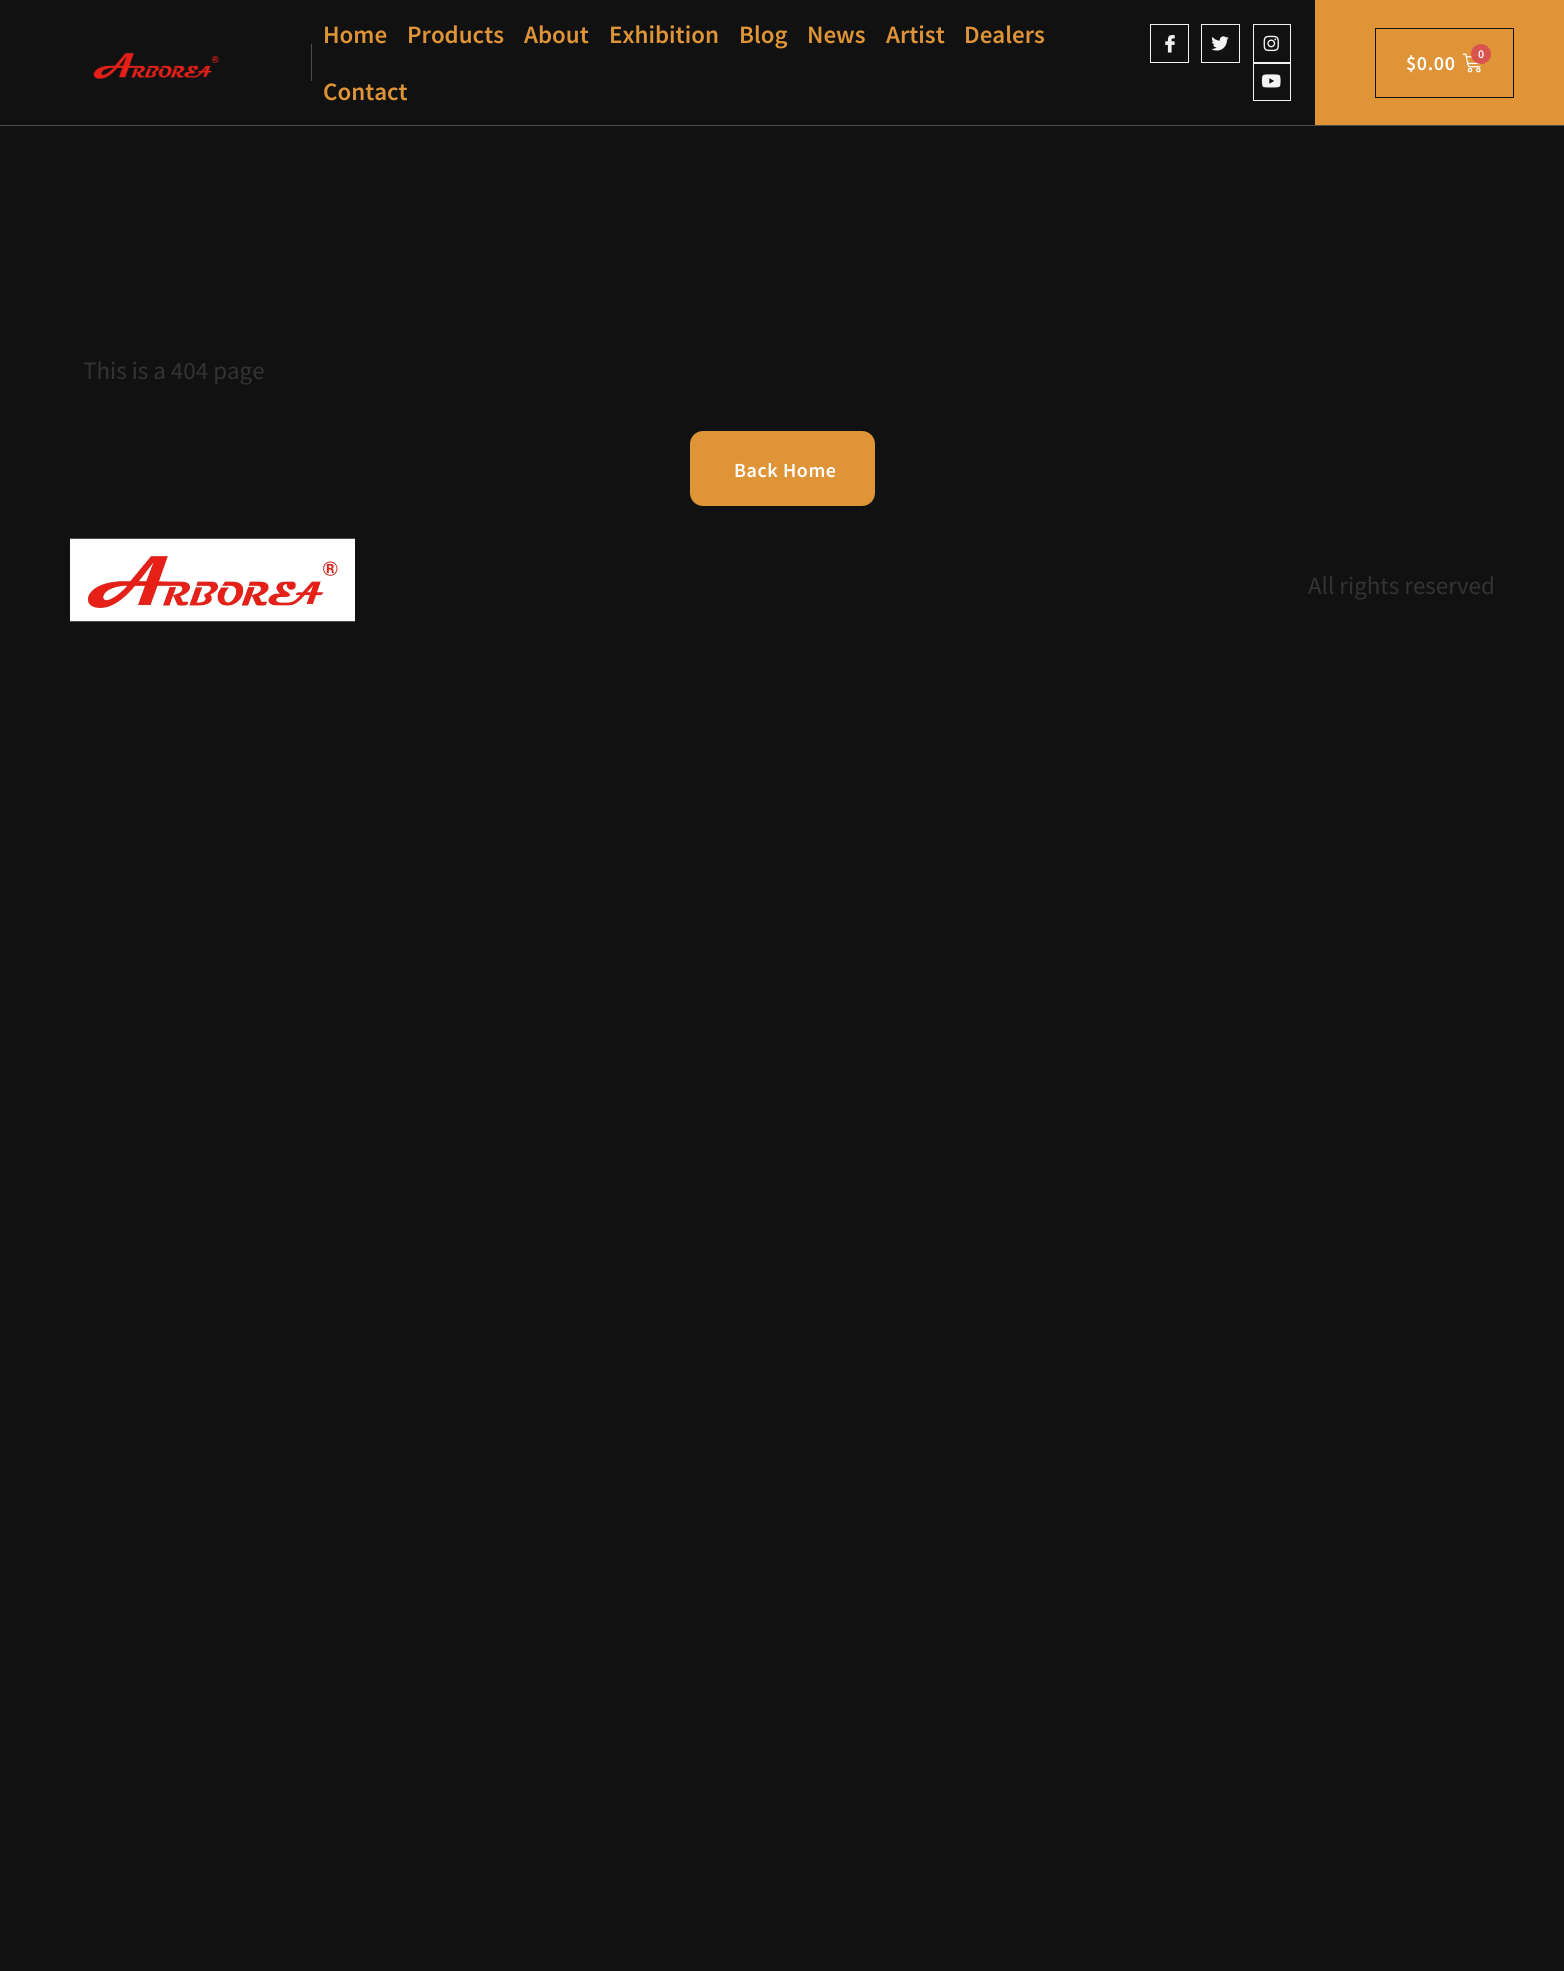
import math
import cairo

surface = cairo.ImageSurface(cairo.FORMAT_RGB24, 1564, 1971)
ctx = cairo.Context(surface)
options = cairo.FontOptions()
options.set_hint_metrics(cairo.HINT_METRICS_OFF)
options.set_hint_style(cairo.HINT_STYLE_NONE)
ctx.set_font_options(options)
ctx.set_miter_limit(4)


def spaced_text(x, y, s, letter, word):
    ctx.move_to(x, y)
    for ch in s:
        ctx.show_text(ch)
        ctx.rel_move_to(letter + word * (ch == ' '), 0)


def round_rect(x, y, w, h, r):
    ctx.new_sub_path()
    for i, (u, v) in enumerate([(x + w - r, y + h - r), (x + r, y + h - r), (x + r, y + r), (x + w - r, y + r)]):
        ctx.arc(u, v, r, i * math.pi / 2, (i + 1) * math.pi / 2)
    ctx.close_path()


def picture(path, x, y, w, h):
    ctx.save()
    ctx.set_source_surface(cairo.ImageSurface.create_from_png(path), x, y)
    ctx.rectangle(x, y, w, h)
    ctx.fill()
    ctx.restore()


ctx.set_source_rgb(0.067, 0.067, 0.067)
ctx.paint()
ctx.set_source_rgb(0.875, 0.58, 0.22)
ctx.rectangle(1315, 0, 249, 125)
ctx.fill()
ctx.set_source_rgb(0.302, 0.302, 0.302)
ctx.rectangle(0, 125, 1564, 1)
ctx.fill()
ctx.rectangle(311, 44, 1, 37)
ctx.fill()
picture("img1.png", 93, 52, 126, 27)
ctx.select_font_face("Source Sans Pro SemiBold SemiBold")
ctx.set_font_size(25)
ctx.set_source_rgb(0.875, 0.58, 0.22)
ctx.move_to(323, 43)
ctx.show_text("Home")
ctx.move_to(407, 43)
ctx.show_text("Products")
ctx.move_to(524, 43)
ctx.show_text("About")
ctx.move_to(609, 43)
ctx.show_text("Exhibition")
ctx.move_to(739, 43)
ctx.show_text("Blog")
ctx.move_to(807, 43)
ctx.show_text("News")
ctx.move_to(886, 43)
ctx.show_text("Artist")
ctx.move_to(964, 43)
ctx.show_text("Dealers")
ctx.move_to(323, 100)
ctx.show_text("Contact")
ctx.rectangle(1150.5, 24.5, 38, 38)
ctx.set_source_rgb(0.957, 0.953, 0.953)
ctx.set_line_width(1)
ctx.stroke()
picture("img2.png", 1165, 35, 10, 18)
ctx.rectangle(1201.5, 24.5, 38, 38)
ctx.stroke()
picture("img3.png", 1211, 36, 18, 15)
ctx.rectangle(1253.5, 24.5, 37, 38)
ctx.stroke()
picture("img4.png", 1263, 35, 16, 17)
ctx.rectangle(1253.5, 63.5, 37, 37)
ctx.stroke()
picture("img5.png", 1261, 74, 20, 14)
ctx.rectangle(1375.5, 28.5, 138, 69)
ctx.set_source_rgb(0.067, 0.067, 0.067)
ctx.stroke()
picture("img6.png", 1462, 53, 20, 20)
ctx.set_source_rgb(0.851, 0.325, 0.31)
ctx.arc(1481, 54, 10, 0, 2 * math.pi)
ctx.fill()
ctx.set_font_size(12)
ctx.set_source_rgb(1, 1, 1)
spaced_text(1478, 58, "0", 0.6, 0)
ctx.set_font_size(20)
spaced_text(1406, 70, "$0.00", 0.6, 0)
ctx.select_font_face("Source Sans Pro")
ctx.set_font_size(25)
ctx.set_source_rgb(0.2, 0.2, 0.2)
ctx.move_to(83, 379)
ctx.show_text("This is a 404 page")
ctx.set_source_rgb(0.875, 0.58, 0.22)
round_rect(690, 431, 185, 75, 13)
ctx.fill()
ctx.select_font_face("Source Sans Pro SemiBold SemiBold")
ctx.set_font_size(20)
ctx.set_source_rgb(1, 1, 1)
spaced_text(734, 477, "Back Home", 0.6, 0)
picture("img7.png", 70, 538, 285, 84)
ctx.select_font_face("Source Sans Pro")
ctx.set_font_size(25)
ctx.set_source_rgb(0.2, 0.2, 0.2)
ctx.move_to(1308, 594)
ctx.show_text("All rights reserved")
surface.write_to_png("page.png")
